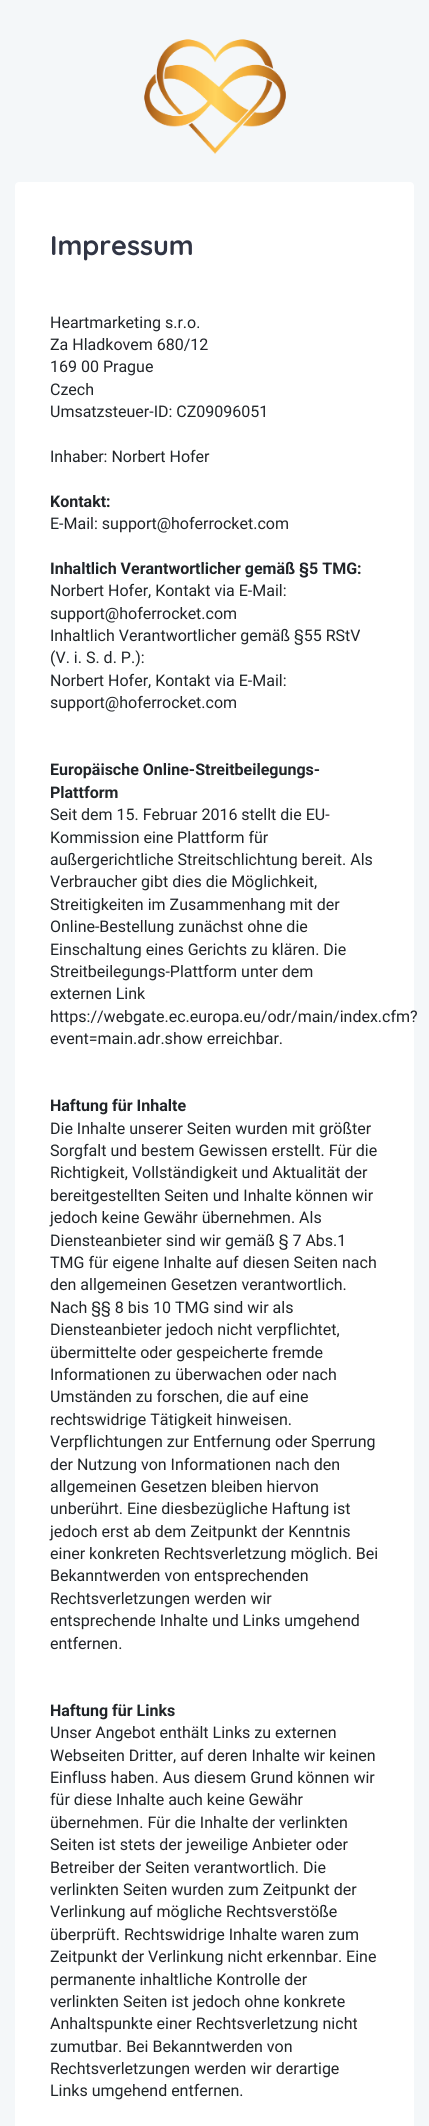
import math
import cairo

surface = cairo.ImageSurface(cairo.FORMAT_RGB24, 429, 2126)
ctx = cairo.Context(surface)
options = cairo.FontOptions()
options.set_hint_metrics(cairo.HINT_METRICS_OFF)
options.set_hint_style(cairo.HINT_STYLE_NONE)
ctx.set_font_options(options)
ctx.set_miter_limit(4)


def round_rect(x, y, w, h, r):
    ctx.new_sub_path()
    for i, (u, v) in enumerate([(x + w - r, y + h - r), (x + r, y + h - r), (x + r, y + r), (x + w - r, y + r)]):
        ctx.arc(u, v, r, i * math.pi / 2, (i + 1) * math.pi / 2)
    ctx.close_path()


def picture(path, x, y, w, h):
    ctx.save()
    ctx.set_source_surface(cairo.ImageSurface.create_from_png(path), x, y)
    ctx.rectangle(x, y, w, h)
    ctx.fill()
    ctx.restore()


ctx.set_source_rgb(0.957, 0.965, 0.976)
ctx.paint()
picture("img1.png", 144, 39, 142, 115)
ctx.set_source_rgb(1, 1, 1)
round_rect(15, 182, 399, 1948, 4)
ctx.fill()
ctx.select_font_face("Quicksand", cairo.FONT_SLANT_NORMAL, cairo.FONT_WEIGHT_BOLD)
ctx.set_font_size(27)
ctx.set_source_rgb(0.192, 0.208, 0.267)
ctx.move_to(50, 255)
ctx.show_text("Impressum")
ctx.select_font_face("Roboto")
ctx.set_font_size(16)
ctx.set_source_rgb(0.129, 0.145, 0.161)
ctx.move_to(50, 328)
ctx.show_text("Heartmarketing s.r.o.")
ctx.move_to(50, 350)
ctx.show_text("Za Hladkovem 680/12")
ctx.move_to(50, 372)
ctx.show_text("169 00 Prague")
ctx.move_to(50, 395)
ctx.show_text("Czech")
ctx.move_to(50, 417)
ctx.show_text("Umsatzsteuer-ID: CZ09096051")
ctx.move_to(50, 462)
ctx.show_text("Inhaber: Norbert Hofer")
ctx.select_font_face("Roboto", cairo.FONT_SLANT_NORMAL, cairo.FONT_WEIGHT_BOLD)
ctx.move_to(50, 507)
ctx.show_text("Kontakt:")
ctx.select_font_face("Roboto")
ctx.move_to(50, 529)
ctx.show_text("E-Mail: support@hoferrocket.com")
ctx.select_font_face("Roboto", cairo.FONT_SLANT_NORMAL, cairo.FONT_WEIGHT_BOLD)
ctx.move_to(50, 574)
ctx.show_text("Inhaltlich Verantwortlicher gemäß §5 TMG:")
ctx.select_font_face("Roboto")
ctx.move_to(50, 596)
ctx.show_text("Norbert Hofer, Kontakt via E-Mail:")
ctx.move_to(50, 619)
ctx.show_text("support@hoferrocket.com")
ctx.move_to(50, 641)
ctx.show_text("Inhaltlich Verantwortlicher gemäß §55 RStV")
ctx.move_to(50, 663)
ctx.show_text("(V. i. S. d. P.):")
ctx.move_to(50, 686)
ctx.show_text("Norbert Hofer, Kontakt via E-Mail:")
ctx.move_to(50, 708)
ctx.show_text("support@hoferrocket.com")
ctx.select_font_face("Roboto", cairo.FONT_SLANT_NORMAL, cairo.FONT_WEIGHT_BOLD)
ctx.move_to(50, 775)
ctx.show_text("Europäische Online-Streitbeilegungs-")
ctx.move_to(50, 798)
ctx.show_text("Plattform")
ctx.select_font_face("Roboto")
ctx.move_to(50, 820)
ctx.show_text("Seit dem 15. Februar 2016 stellt die EU-")
ctx.move_to(50, 843)
ctx.show_text("Kommission eine Plattform für")
ctx.move_to(50, 865)
ctx.show_text("außergerichtliche Streitschlichtung bereit. Als")
ctx.move_to(50, 887)
ctx.show_text("Verbraucher gibt dies die Möglichkeit,")
ctx.move_to(50, 910)
ctx.show_text("Streitigkeiten im Zusammenhang mit der")
ctx.move_to(50, 932)
ctx.show_text("Online-Bestellung zunächst ohne die")
ctx.move_to(50, 955)
ctx.show_text("Einschaltung eines Gerichts zu klären. Die")
ctx.move_to(50, 977)
ctx.show_text("Streitbeilegungs-Plattform unter dem")
ctx.move_to(50, 999)
ctx.show_text("externen Link")
ctx.move_to(50, 1022)
ctx.show_text("https://webgate.ec.europa.eu/odr/main/index.cfm?")
ctx.move_to(50, 1044)
ctx.show_text("event=main.adr.show erreichbar.")
ctx.select_font_face("Roboto", cairo.FONT_SLANT_NORMAL, cairo.FONT_WEIGHT_BOLD)
ctx.move_to(50, 1111)
ctx.show_text("Haftung für Inhalte")
ctx.select_font_face("Roboto")
ctx.move_to(50, 1134)
ctx.show_text("Die Inhalte unserer Seiten wurden mit größter")
ctx.move_to(50, 1156)
ctx.show_text("Sorgfalt und bestem Gewissen erstellt. Für die")
ctx.move_to(50, 1178)
ctx.show_text("Richtigkeit, Vollständigkeit und Aktualität der")
ctx.move_to(50, 1201)
ctx.show_text("bereitgestellten Seiten und Inhalte können wir")
ctx.move_to(50, 1223)
ctx.show_text("jedoch keine Gewähr übernehmen. Als")
ctx.move_to(50, 1246)
ctx.show_text("Diensteanbieter sind wir gemäß § 7 Abs.1")
ctx.move_to(50, 1268)
ctx.show_text("TMG für eigene Inhalte auf diesen Seiten nach")
ctx.move_to(50, 1290)
ctx.show_text("den allgemeinen Gesetzen verantwortlich.")
ctx.move_to(50, 1313)
ctx.show_text("Nach §§ 8 bis 10 TMG sind wir als")
ctx.move_to(50, 1335)
ctx.show_text("Diensteanbieter jedoch nicht verpflichtet,")
ctx.move_to(50, 1358)
ctx.show_text("übermittelte oder gespeicherte fremde")
ctx.move_to(50, 1380)
ctx.show_text("Informationen zu überwachen oder nach")
ctx.move_to(50, 1402)
ctx.show_text("Umständen zu forschen, die auf eine")
ctx.move_to(50, 1425)
ctx.show_text("rechtswidrige Tätigkeit hinweisen.")
ctx.move_to(50, 1447)
ctx.show_text("Verpflichtungen zur Entfernung oder Sperrung")
ctx.move_to(50, 1470)
ctx.show_text("der Nutzung von Informationen nach den")
ctx.move_to(50, 1492)
ctx.show_text("allgemeinen Gesetzen bleiben hiervon")
ctx.move_to(50, 1514)
ctx.show_text("unberührt. Eine diesbezügliche Haftung ist")
ctx.move_to(50, 1537)
ctx.show_text("jedoch erst ab dem Zeitpunkt der Kenntnis")
ctx.move_to(50, 1559)
ctx.show_text("einer konkreten Rechtsverletzung möglich. Bei")
ctx.move_to(50, 1581)
ctx.show_text("Bekanntwerden von entsprechenden")
ctx.move_to(50, 1604)
ctx.show_text("Rechtsverletzungen werden wir")
ctx.move_to(50, 1626)
ctx.show_text("entsprechende Inhalte und Links umgehend")
ctx.move_to(50, 1649)
ctx.show_text("entfernen.")
ctx.select_font_face("Roboto", cairo.FONT_SLANT_NORMAL, cairo.FONT_WEIGHT_BOLD)
ctx.move_to(50, 1716)
ctx.show_text("Haftung für Links")
ctx.select_font_face("Roboto")
ctx.move_to(50, 1738)
ctx.show_text("Unser Angebot enthält Links zu externen")
ctx.move_to(50, 1761)
ctx.show_text("Webseiten Dritter, auf deren Inhalte wir keinen")
ctx.move_to(50, 1783)
ctx.show_text("Einfluss haben. Aus diesem Grund können wir")
ctx.move_to(50, 1805)
ctx.show_text("für diese Inhalte auch keine Gewähr")
ctx.move_to(50, 1828)
ctx.show_text("übernehmen. Für die Inhalte der verlinkten")
ctx.move_to(50, 1850)
ctx.show_text("Seiten ist stets der jeweilige Anbieter oder")
ctx.move_to(50, 1873)
ctx.show_text("Betreiber der Seiten verantwortlich. Die")
ctx.move_to(50, 1895)
ctx.show_text("verlinkten Seiten wurden zum Zeitpunkt der")
ctx.move_to(50, 1917)
ctx.show_text("Verlinkung auf mögliche Rechtsverstöße")
ctx.move_to(50, 1940)
ctx.show_text("überprüft. Rechtswidrige Inhalte waren zum")
ctx.move_to(50, 1962)
ctx.show_text("Zeitpunkt der Verlinkung nicht erkennbar. Eine")
ctx.move_to(50, 1985)
ctx.show_text("permanente inhaltliche Kontrolle der")
ctx.move_to(50, 2007)
ctx.show_text("verlinkten Seiten ist jedoch ohne konkrete")
ctx.move_to(50, 2029)
ctx.show_text("Anhaltspunkte einer Rechtsverletzung nicht")
ctx.move_to(50, 2052)
ctx.show_text("zumutbar. Bei Bekanntwerden von")
ctx.move_to(50, 2074)
ctx.show_text("Rechtsverletzungen werden wir derartige")
ctx.move_to(50, 2096)
ctx.show_text("Links umgehend entfernen.")
surface.write_to_png("page.png")
